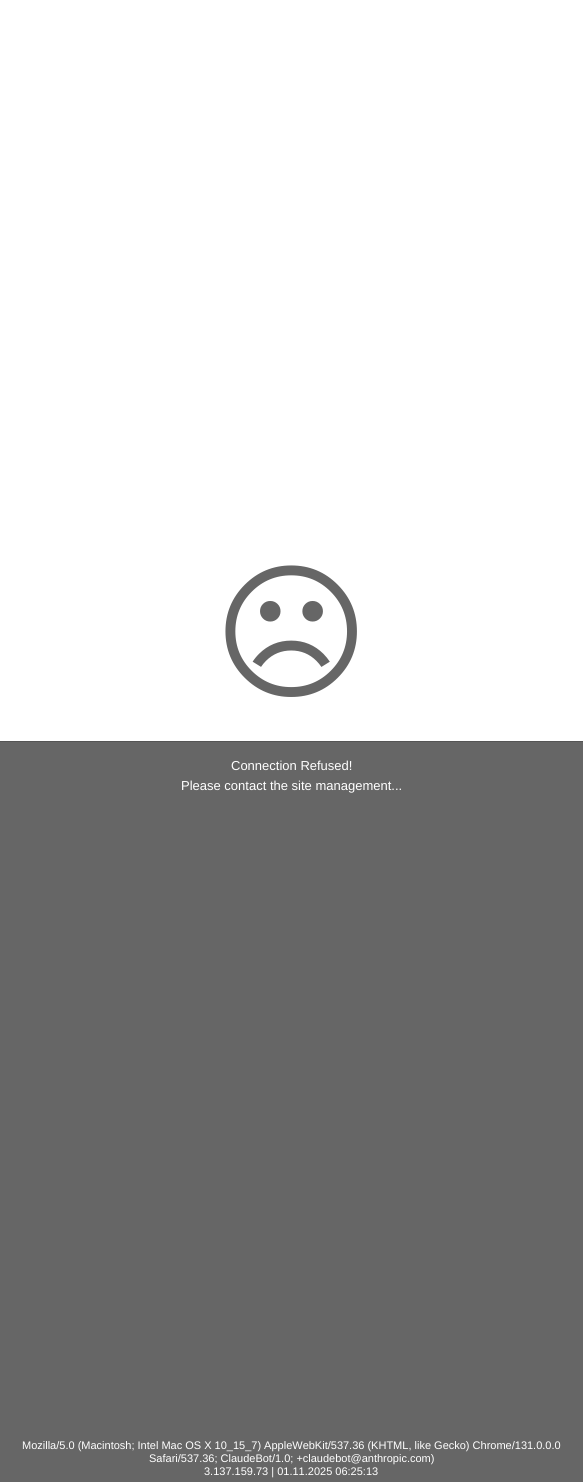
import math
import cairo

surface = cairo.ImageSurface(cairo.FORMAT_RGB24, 583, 1482)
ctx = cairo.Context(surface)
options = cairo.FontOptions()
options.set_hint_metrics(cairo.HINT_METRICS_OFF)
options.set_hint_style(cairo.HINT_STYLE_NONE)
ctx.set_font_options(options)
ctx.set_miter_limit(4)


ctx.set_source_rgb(1, 1, 1)
ctx.paint()
ctx.select_font_face("DejaVu Sans")
ctx.set_font_size(150)
ctx.set_source_rgb(0.4, 0.4, 0.4)
ctx.move_to(213, 686)
ctx.show_text("☹")
ctx.rectangle(0, 742, 583, 740)
ctx.fill()
ctx.set_source_rgb(0.333, 0.333, 0.333)
ctx.rectangle(0, 741, 583, 1)
ctx.fill()
ctx.select_font_face("Liberation Sans")
ctx.set_font_size(13)
ctx.set_source_rgb(1, 1, 1)
ctx.move_to(231, 770)
ctx.show_text("Connection Refused!")
ctx.move_to(181, 790)
ctx.show_text("Please contact the site management...")
ctx.set_font_size(11)
ctx.move_to(22, 1449)
ctx.show_text("Mozilla/5.0 (Macintosh; Intel Mac OS X 10_15_7) AppleWebKit/537.36 (KHTML, like Gecko) Chrome/131.0.0.0")
ctx.move_to(149, 1462)
ctx.show_text("Safari/537.36; ClaudeBot/1.0; +claudebot@anthropic.com)")
ctx.move_to(204, 1475)
ctx.show_text("3.137.159.73 | 01.11.2025 06:25:13")
surface.write_to_png("page.png")
